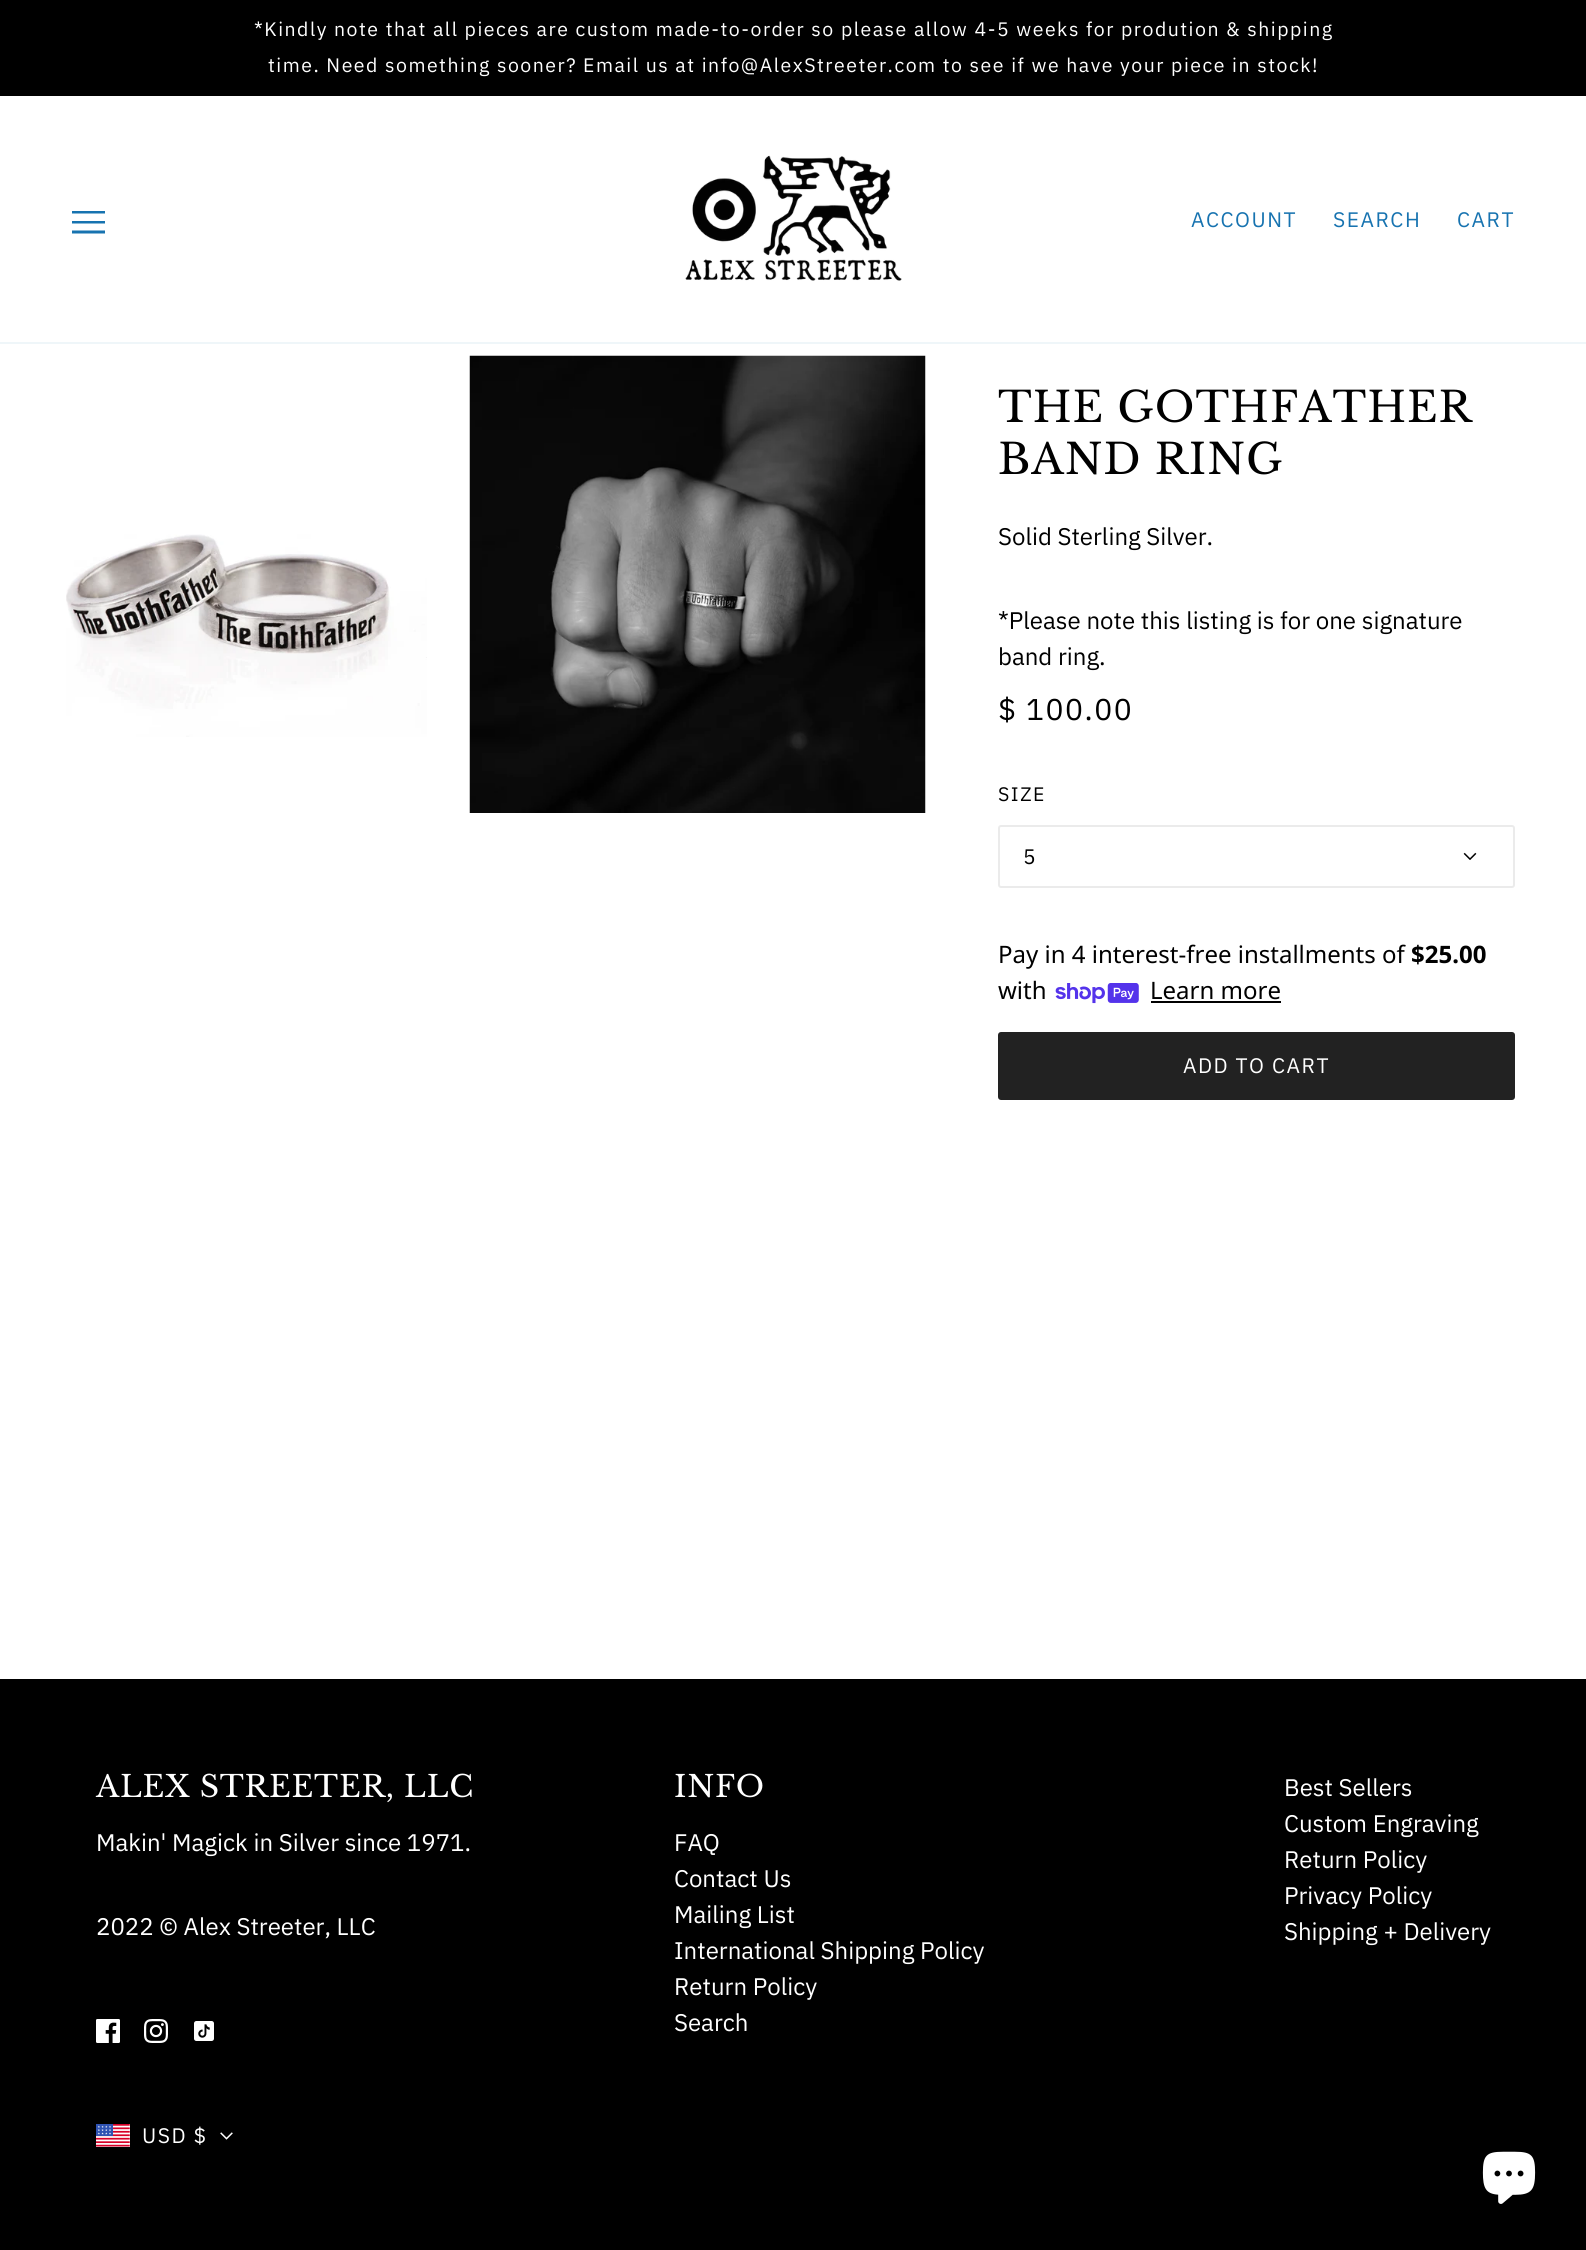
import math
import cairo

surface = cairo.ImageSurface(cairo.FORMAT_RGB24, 1586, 2250)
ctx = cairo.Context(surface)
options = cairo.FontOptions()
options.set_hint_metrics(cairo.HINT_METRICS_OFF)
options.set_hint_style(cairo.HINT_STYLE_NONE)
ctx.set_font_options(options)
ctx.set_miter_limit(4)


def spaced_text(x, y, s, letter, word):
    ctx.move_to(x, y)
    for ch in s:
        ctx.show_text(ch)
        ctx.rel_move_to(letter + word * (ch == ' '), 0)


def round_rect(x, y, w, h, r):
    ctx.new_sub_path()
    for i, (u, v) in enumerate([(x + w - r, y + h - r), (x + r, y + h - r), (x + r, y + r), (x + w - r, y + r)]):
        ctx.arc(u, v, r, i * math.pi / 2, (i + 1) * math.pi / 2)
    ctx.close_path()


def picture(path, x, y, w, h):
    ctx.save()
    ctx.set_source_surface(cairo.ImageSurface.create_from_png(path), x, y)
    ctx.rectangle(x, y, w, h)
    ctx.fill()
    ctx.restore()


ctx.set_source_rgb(1, 1, 1)
ctx.paint()
ctx.set_source_rgb(0, 0, 0)
ctx.rectangle(0, 0, 1586, 96)
ctx.fill()
ctx.select_font_face("IBM Plex Sans")
ctx.set_font_size(19.5)
ctx.set_source_rgb(1, 1, 1)
spaced_text(254, 36, "*Kindly note that all pieces are custom made-to-order so please allow 4-5 weeks for prodution & shipping", 1.5, 0)
spaced_text(268, 72, "time. Need something sooner? Email us at info@AlexStreeter.com to see if we have your piece in stock!", 1.5, 0)
ctx.set_source_rgb(0.937, 0.961, 0.976)
ctx.rectangle(0, 342, 1586, 2)
ctx.fill()
ctx.set_source_rgb(0.09, 0.451, 0.69)
ctx.new_path()
ctx.move_to(72, 213.5)
ctx.line_to(72, 211)
ctx.line_to(105, 211)
ctx.line_to(105, 213.5)
ctx.close_path()
ctx.move_to(72, 223.5)
ctx.line_to(72, 221)
ctx.line_to(105, 221)
ctx.line_to(105, 223.5)
ctx.close_path()
ctx.move_to(72, 233.5)
ctx.line_to(72, 230.5)
ctx.line_to(105, 230.5)
ctx.line_to(105, 233.5)
ctx.close_path()
ctx.fill()
picture("img1.png", 685, 155, 217, 126)
ctx.set_font_size(21)
spaced_text(1191, 227, "ACCOUNT", 1.5, 0)
spaced_text(1333, 227, "SEARCH", 1.5, 0)
spaced_text(1457, 227, "CART", 1.5, 0)
picture("img2.png", 66, 534, 361, 203)
picture("img3.png", 469, 355, 457, 458)
ctx.select_font_face("Libre Baskerville")
ctx.set_font_size(42)
ctx.set_source_rgb(0, 0, 0)
spaced_text(998, 422, "THE GOTHFATHER", 1, 0)
spaced_text(998, 474, "BAND RING", 1, 0)
ctx.select_font_face("IBM Plex Sans")
ctx.set_font_size(24)
ctx.move_to(998, 545)
ctx.show_text("Solid Sterling Silver.")
ctx.move_to(998, 629)
ctx.show_text("*Please note this listing is for one signature")
ctx.move_to(998, 665)
ctx.show_text("band ring.")
ctx.set_font_size(30)
spaced_text(998, 720, "$ 100.00", 1.5, 0)
ctx.set_font_size(19.5)
spaced_text(998, 801, "SIZE", 1.5, 0)
round_rect(999, 826, 515, 61, 2)
ctx.set_source_rgb(0.918, 0.918, 0.918)
ctx.stroke()
ctx.set_font_size(21)
ctx.set_source_rgb(0, 0, 0)
spaced_text(1023, 864, "5", 1.5, 0)
picture("img4.png", 1463, 852, 14, 8)
ctx.select_font_face("Noto Sans")
ctx.set_font_size(24)
ctx.move_to(998, 963)
ctx.show_text("Pay in 4 interest-free installments of")
ctx.select_font_face("Noto Sans", cairo.FONT_SLANT_NORMAL, cairo.FONT_WEIGHT_BOLD)
ctx.move_to(1411, 963)
ctx.show_text("$25.00")
ctx.select_font_face("Noto Sans")
ctx.move_to(998, 999)
ctx.show_text("with")
picture("img5.png", 1055, 983, 84, 21)
ctx.move_to(1150, 999)
ctx.show_text("Learn more")
ctx.rectangle(1151, 1001, 130, 2)
ctx.fill()
ctx.set_source_rgb(0.133, 0.133, 0.133)
round_rect(998, 1032, 517, 68, 3)
ctx.fill()
ctx.select_font_face("IBM Plex Sans")
ctx.set_font_size(21)
ctx.set_source_rgb(1, 1, 1)
spaced_text(1183, 1073, "ADD TO CART", 1.5, 0)
ctx.set_source_rgb(0, 0, 0)
ctx.rectangle(0, 1679, 1586, 571)
ctx.fill()
ctx.select_font_face("Libre Baskerville")
ctx.set_font_size(30)
ctx.set_source_rgb(1, 1, 1)
spaced_text(96, 1797, "ALEX STREETER, LLC", 0.75, 0)
ctx.select_font_face("IBM Plex Sans")
ctx.set_font_size(24)
ctx.move_to(96, 1851)
ctx.show_text("Makin' Magick in Silver since 1971.")
ctx.move_to(96, 1935)
ctx.show_text("2022 © Alex Streeter, LLC")
picture("img6.png", 96, 2019, 24, 24)
picture("img7.png", 144, 2019, 24, 24)
picture("img8.png", 194, 2021, 20, 20)
ctx.select_font_face("Libre Baskerville")
ctx.set_font_size(30)
spaced_text(674, 1797, "INFO", 0.75, 0)
ctx.select_font_face("IBM Plex Sans")
ctx.set_font_size(24)
ctx.move_to(674, 1851)
ctx.show_text("FAQ")
ctx.move_to(674, 1887)
ctx.show_text("Contact Us")
ctx.move_to(674, 1923)
ctx.show_text("Mailing List")
ctx.move_to(674, 1959)
ctx.show_text("International Shipping Policy")
ctx.move_to(674, 1995)
ctx.show_text("Return Policy")
ctx.move_to(674, 2031)
ctx.show_text("Search")
ctx.move_to(1284, 1796)
ctx.show_text("Best Sellers")
ctx.move_to(1284, 1832)
ctx.show_text("Custom Engraving")
ctx.move_to(1284, 1868)
ctx.show_text("Return Policy")
ctx.move_to(1284, 1904)
ctx.show_text("Privacy Policy")
ctx.move_to(1284, 1940)
ctx.show_text("Shipping + Delivery")
picture("img9.png", 96, 2124, 34, 23)
ctx.set_font_size(21)
spaced_text(142, 2143, "USD $", 1.5, 0)
picture("img10.png", 220, 2132, 13, 8)
picture("img11.png", 1482, 2151, 54, 53)
surface.write_to_png("page.png")
